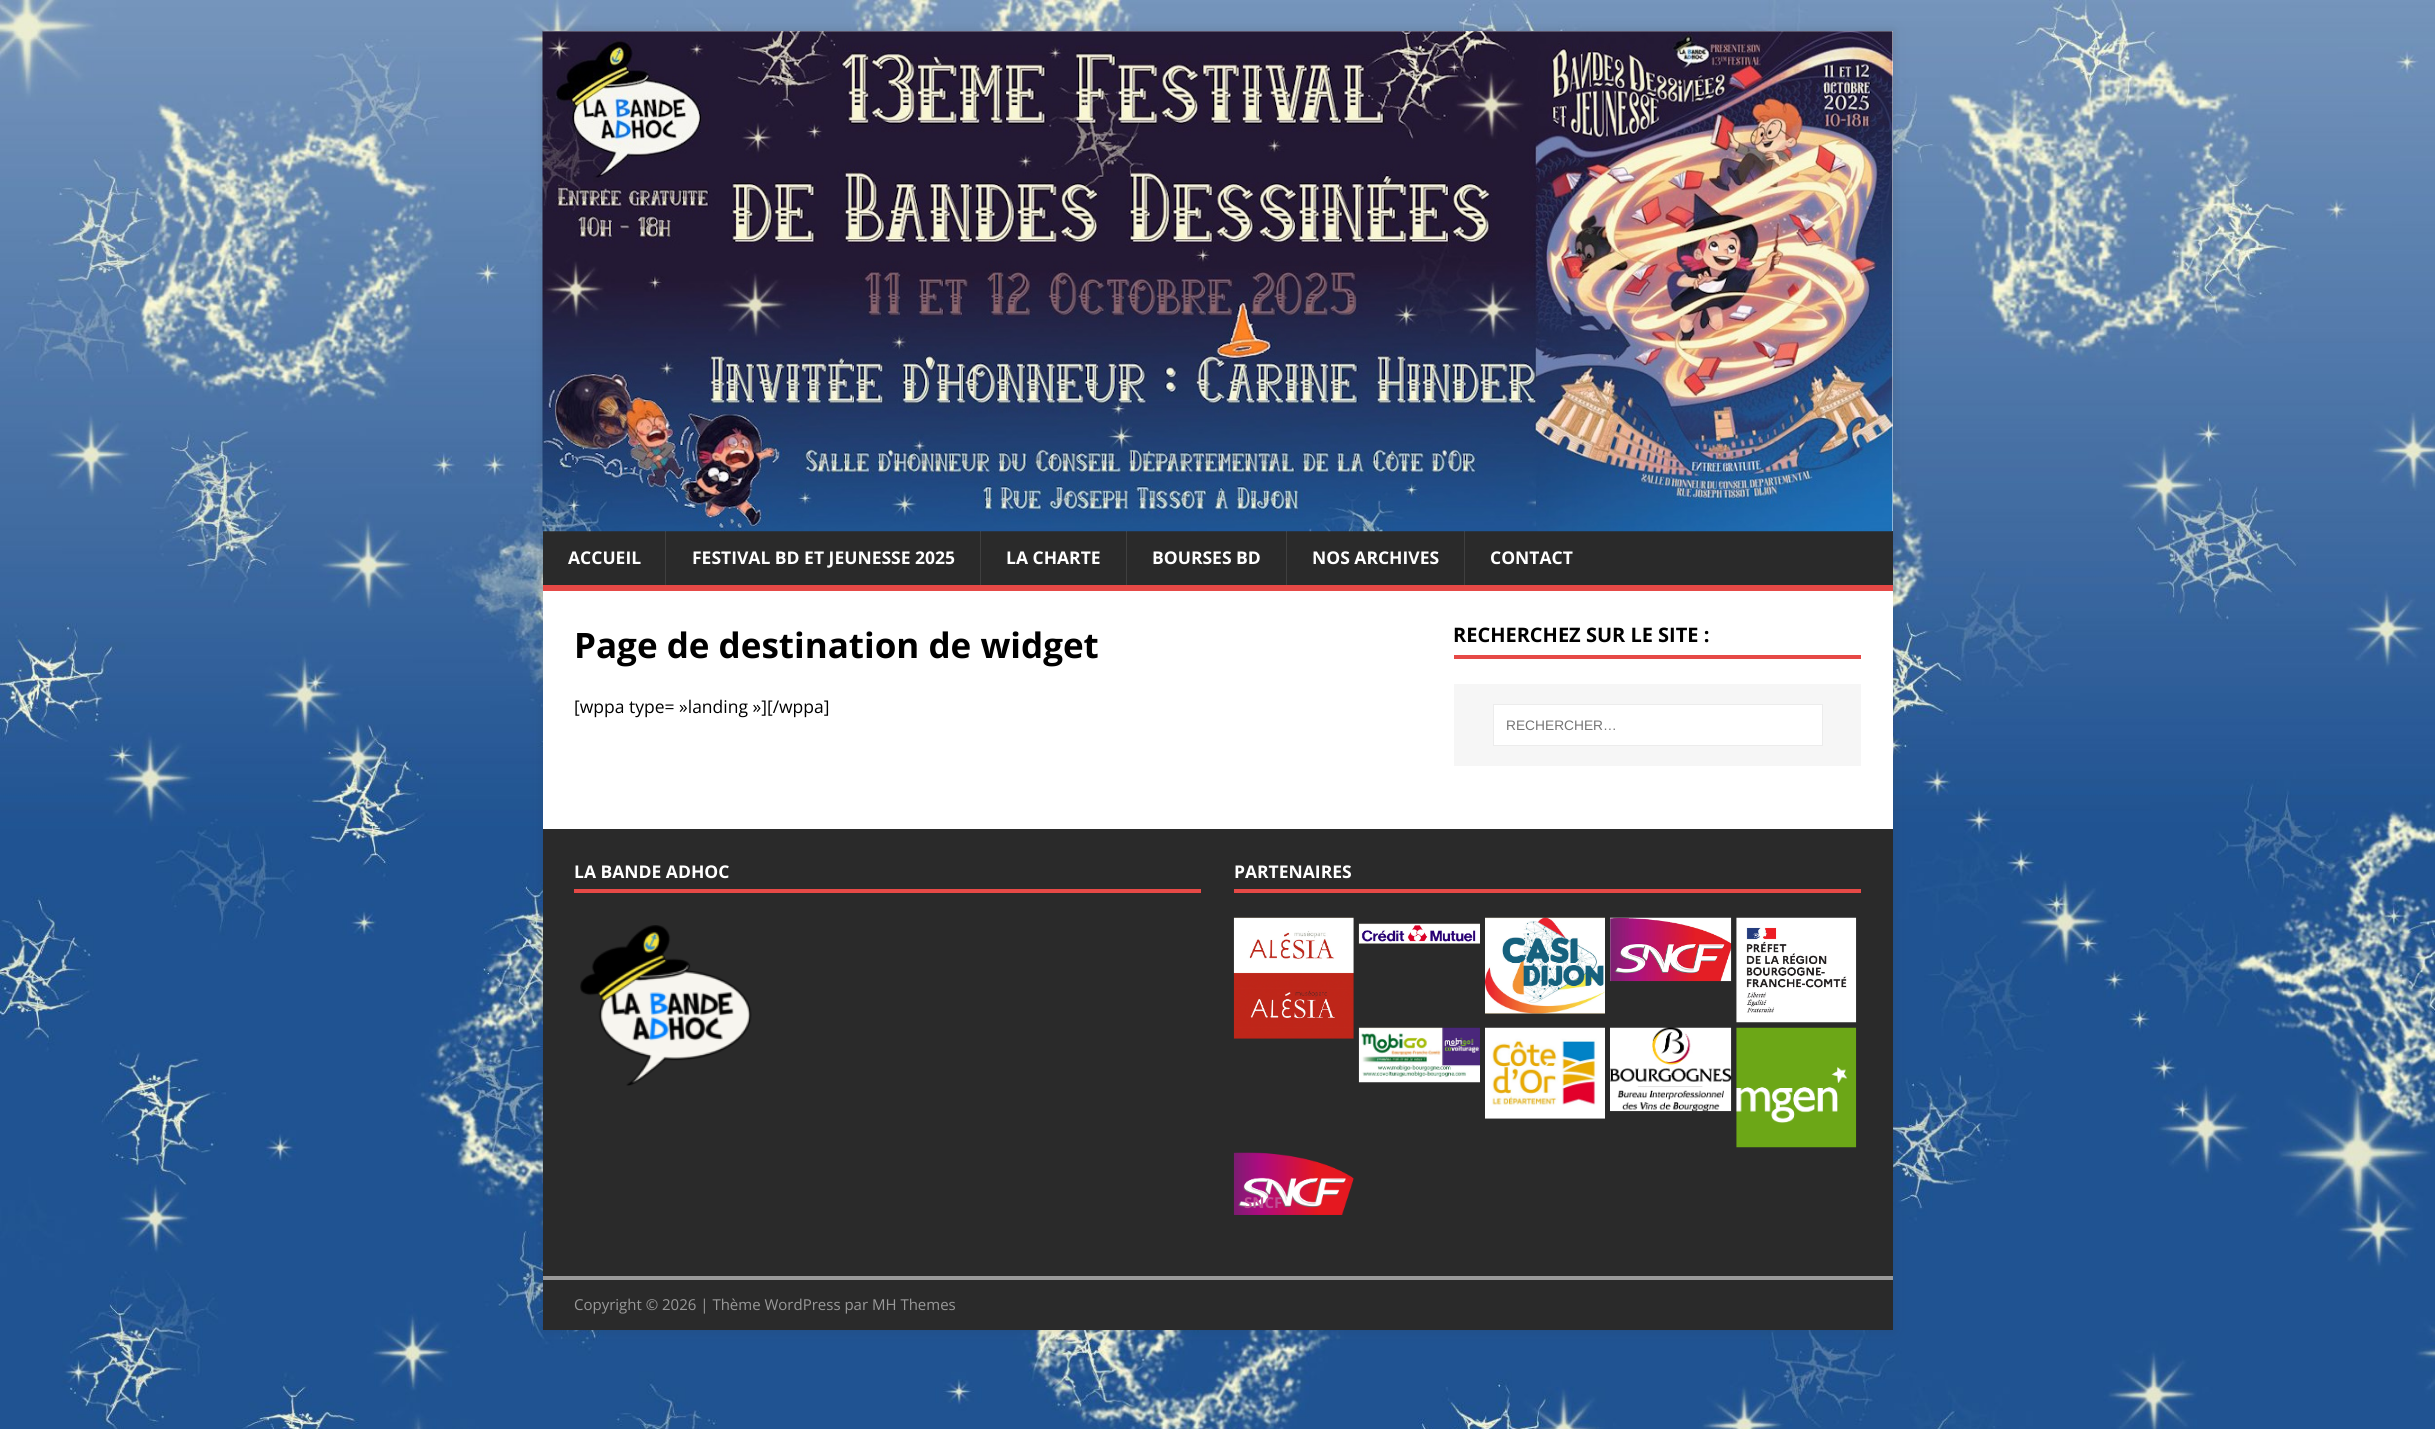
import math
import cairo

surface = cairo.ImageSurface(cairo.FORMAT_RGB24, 2435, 1429)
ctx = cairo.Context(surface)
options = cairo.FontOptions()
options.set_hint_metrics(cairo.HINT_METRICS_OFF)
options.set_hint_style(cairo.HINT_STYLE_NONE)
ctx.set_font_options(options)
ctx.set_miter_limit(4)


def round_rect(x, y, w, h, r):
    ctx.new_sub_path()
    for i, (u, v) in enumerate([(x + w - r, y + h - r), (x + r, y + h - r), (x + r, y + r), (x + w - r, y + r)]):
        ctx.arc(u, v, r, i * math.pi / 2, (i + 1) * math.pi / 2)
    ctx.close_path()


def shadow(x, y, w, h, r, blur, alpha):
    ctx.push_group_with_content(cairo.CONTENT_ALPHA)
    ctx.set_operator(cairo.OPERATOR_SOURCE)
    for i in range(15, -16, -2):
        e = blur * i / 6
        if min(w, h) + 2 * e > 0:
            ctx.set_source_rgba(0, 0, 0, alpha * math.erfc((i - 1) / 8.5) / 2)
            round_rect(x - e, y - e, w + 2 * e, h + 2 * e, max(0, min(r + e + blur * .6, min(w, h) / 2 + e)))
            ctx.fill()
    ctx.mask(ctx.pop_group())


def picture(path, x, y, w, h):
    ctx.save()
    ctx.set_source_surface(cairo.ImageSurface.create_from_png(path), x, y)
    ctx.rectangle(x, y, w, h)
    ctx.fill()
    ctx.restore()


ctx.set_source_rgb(1, 1, 1)
ctx.paint()
picture("img1.png", 0, 0, 2435, 1429)
ctx.set_source_rgb(0.196, 0.196, 0.196)
shadow(543, 31, 1350, 1299, 0, 6, 0.17)
ctx.set_source_rgb(1, 1, 1)
ctx.rectangle(543, 31, 1350, 500)
ctx.fill()
ctx.set_source_rgb(0.165, 0.165, 0.165)
ctx.rectangle(543, 531, 1350, 54)
ctx.fill()
picture("img2.png", 542, 31, 1351, 501)
ctx.set_source_rgb(0.902, 0.286, 0.275)
ctx.rectangle(543, 585, 1350, 6)
ctx.fill()
ctx.select_font_face("Open Sans", cairo.FONT_SLANT_NORMAL, cairo.FONT_WEIGHT_BOLD)
ctx.set_font_size(17.5)
ctx.set_source_rgb(1, 1, 1)
ctx.move_to(568, 564)
ctx.show_text("ACCUEIL")
ctx.set_source_rgba(1, 1, 1, 0.1)
ctx.rectangle(665, 531, 1, 54)
ctx.fill()
ctx.set_source_rgb(1, 1, 1)
ctx.move_to(692, 564)
ctx.show_text("FESTIVAL BD ET JEUNESSE 2025")
ctx.set_source_rgba(1, 1, 1, 0.1)
ctx.rectangle(980, 531, 1, 54)
ctx.fill()
ctx.set_source_rgb(1, 1, 1)
ctx.move_to(1006, 564)
ctx.show_text("LA CHARTE")
ctx.set_source_rgba(1, 1, 1, 0.1)
ctx.rectangle(1126, 531, 1, 54)
ctx.fill()
ctx.set_source_rgb(1, 1, 1)
ctx.move_to(1152, 564)
ctx.show_text("BOURSES BD")
ctx.set_source_rgba(1, 1, 1, 0.1)
ctx.rectangle(1286, 531, 1, 54)
ctx.fill()
ctx.set_source_rgb(1, 1, 1)
ctx.move_to(1312, 564)
ctx.show_text("NOS ARCHIVES")
ctx.set_source_rgba(1, 1, 1, 0.1)
ctx.rectangle(1464, 531, 1, 54)
ctx.fill()
ctx.set_source_rgb(1, 1, 1)
ctx.move_to(1490, 564)
ctx.show_text("CONTACT")
ctx.rectangle(543, 591, 1350, 238)
ctx.fill()
ctx.set_font_size(35)
ctx.set_source_rgb(0, 0, 0)
ctx.move_to(574, 658)
ctx.show_text("Page de destination de widget")
ctx.select_font_face("Open Sans")
ctx.set_font_size(17.5)
ctx.move_to(574, 713)
ctx.show_text("[wppa type= »landing »][/wppa]")
ctx.set_source_rgb(0.902, 0.286, 0.275)
ctx.rectangle(1454, 655, 407, 4)
ctx.fill()
ctx.select_font_face("Open Sans", cairo.FONT_SLANT_NORMAL, cairo.FONT_WEIGHT_BOLD)
ctx.set_font_size(20)
ctx.set_source_rgb(0, 0, 0)
ctx.move_to(1453, 642)
ctx.show_text("RECHERCHEZ SUR LE SITE :")
ctx.set_source_rgb(0.961, 0.961, 0.961)
ctx.rectangle(1454, 684, 407, 82)
ctx.fill()
ctx.set_source_rgb(1, 1, 1)
ctx.rectangle(1493.5, 704.5, 329, 41)
ctx.fill_preserve()
ctx.set_source_rgb(0.922, 0.922, 0.922)
ctx.set_line_width(1)
ctx.stroke()
ctx.select_font_face("Liberation Sans")
ctx.set_font_size(13.75)
ctx.set_source_rgb(0.459, 0.459, 0.459)
ctx.move_to(1506, 730)
ctx.show_text("RECHERCHER…")
ctx.set_source_rgb(0.165, 0.165, 0.165)
ctx.rectangle(543, 829, 1350, 447)
ctx.fill()
ctx.set_source_rgb(0.902, 0.286, 0.275)
ctx.rectangle(574, 889, 627, 4)
ctx.fill()
ctx.select_font_face("Open Sans", cairo.FONT_SLANT_NORMAL, cairo.FONT_WEIGHT_BOLD)
ctx.set_font_size(17.5)
ctx.set_source_rgb(1, 1, 1)
ctx.move_to(574, 878)
ctx.show_text("LA BANDE ADHOC")
picture("img3.png", 580, 925, 172, 161)
ctx.set_source_rgb(0.902, 0.286, 0.275)
ctx.rectangle(1234, 889, 627, 4)
ctx.fill()
ctx.set_source_rgb(1, 1, 1)
ctx.move_to(1234, 878)
ctx.show_text("PARTENAIRES")
picture("img4.png", 1233, 917, 121, 122)
picture("img5.png", 1358, 923, 122, 21)
picture("img6.png", 1485, 917, 120, 97)
picture("img7.png", 1610, 917, 122, 65)
picture("img8.png", 1736, 917, 121, 106)
picture("img9.png", 1358, 1027, 122, 56)
picture("img10.png", 1485, 1027, 120, 92)
picture("img11.png", 1610, 1027, 122, 85)
picture("img12.png", 1736, 1027, 121, 121)
picture("img13.png", 1233, 1152, 121, 63)
ctx.set_font_size(15)
ctx.set_source_rgb(0.745, 0.31, 0.58)
ctx.move_to(1244, 1208)
ctx.show_text("SNCF")
ctx.set_source_rgb(0.165, 0.165, 0.165)
ctx.rectangle(543, 1280, 1350, 50)
ctx.fill()
ctx.set_source_rgb(0.6, 0.6, 0.6)
ctx.rectangle(543, 1276, 1350, 4)
ctx.fill()
ctx.select_font_face("Open Sans")
ctx.move_to(574, 1310)
ctx.show_text("Copyright © 2026 | Thème WordPress par MH Themes")
surface.write_to_png("page.png")
